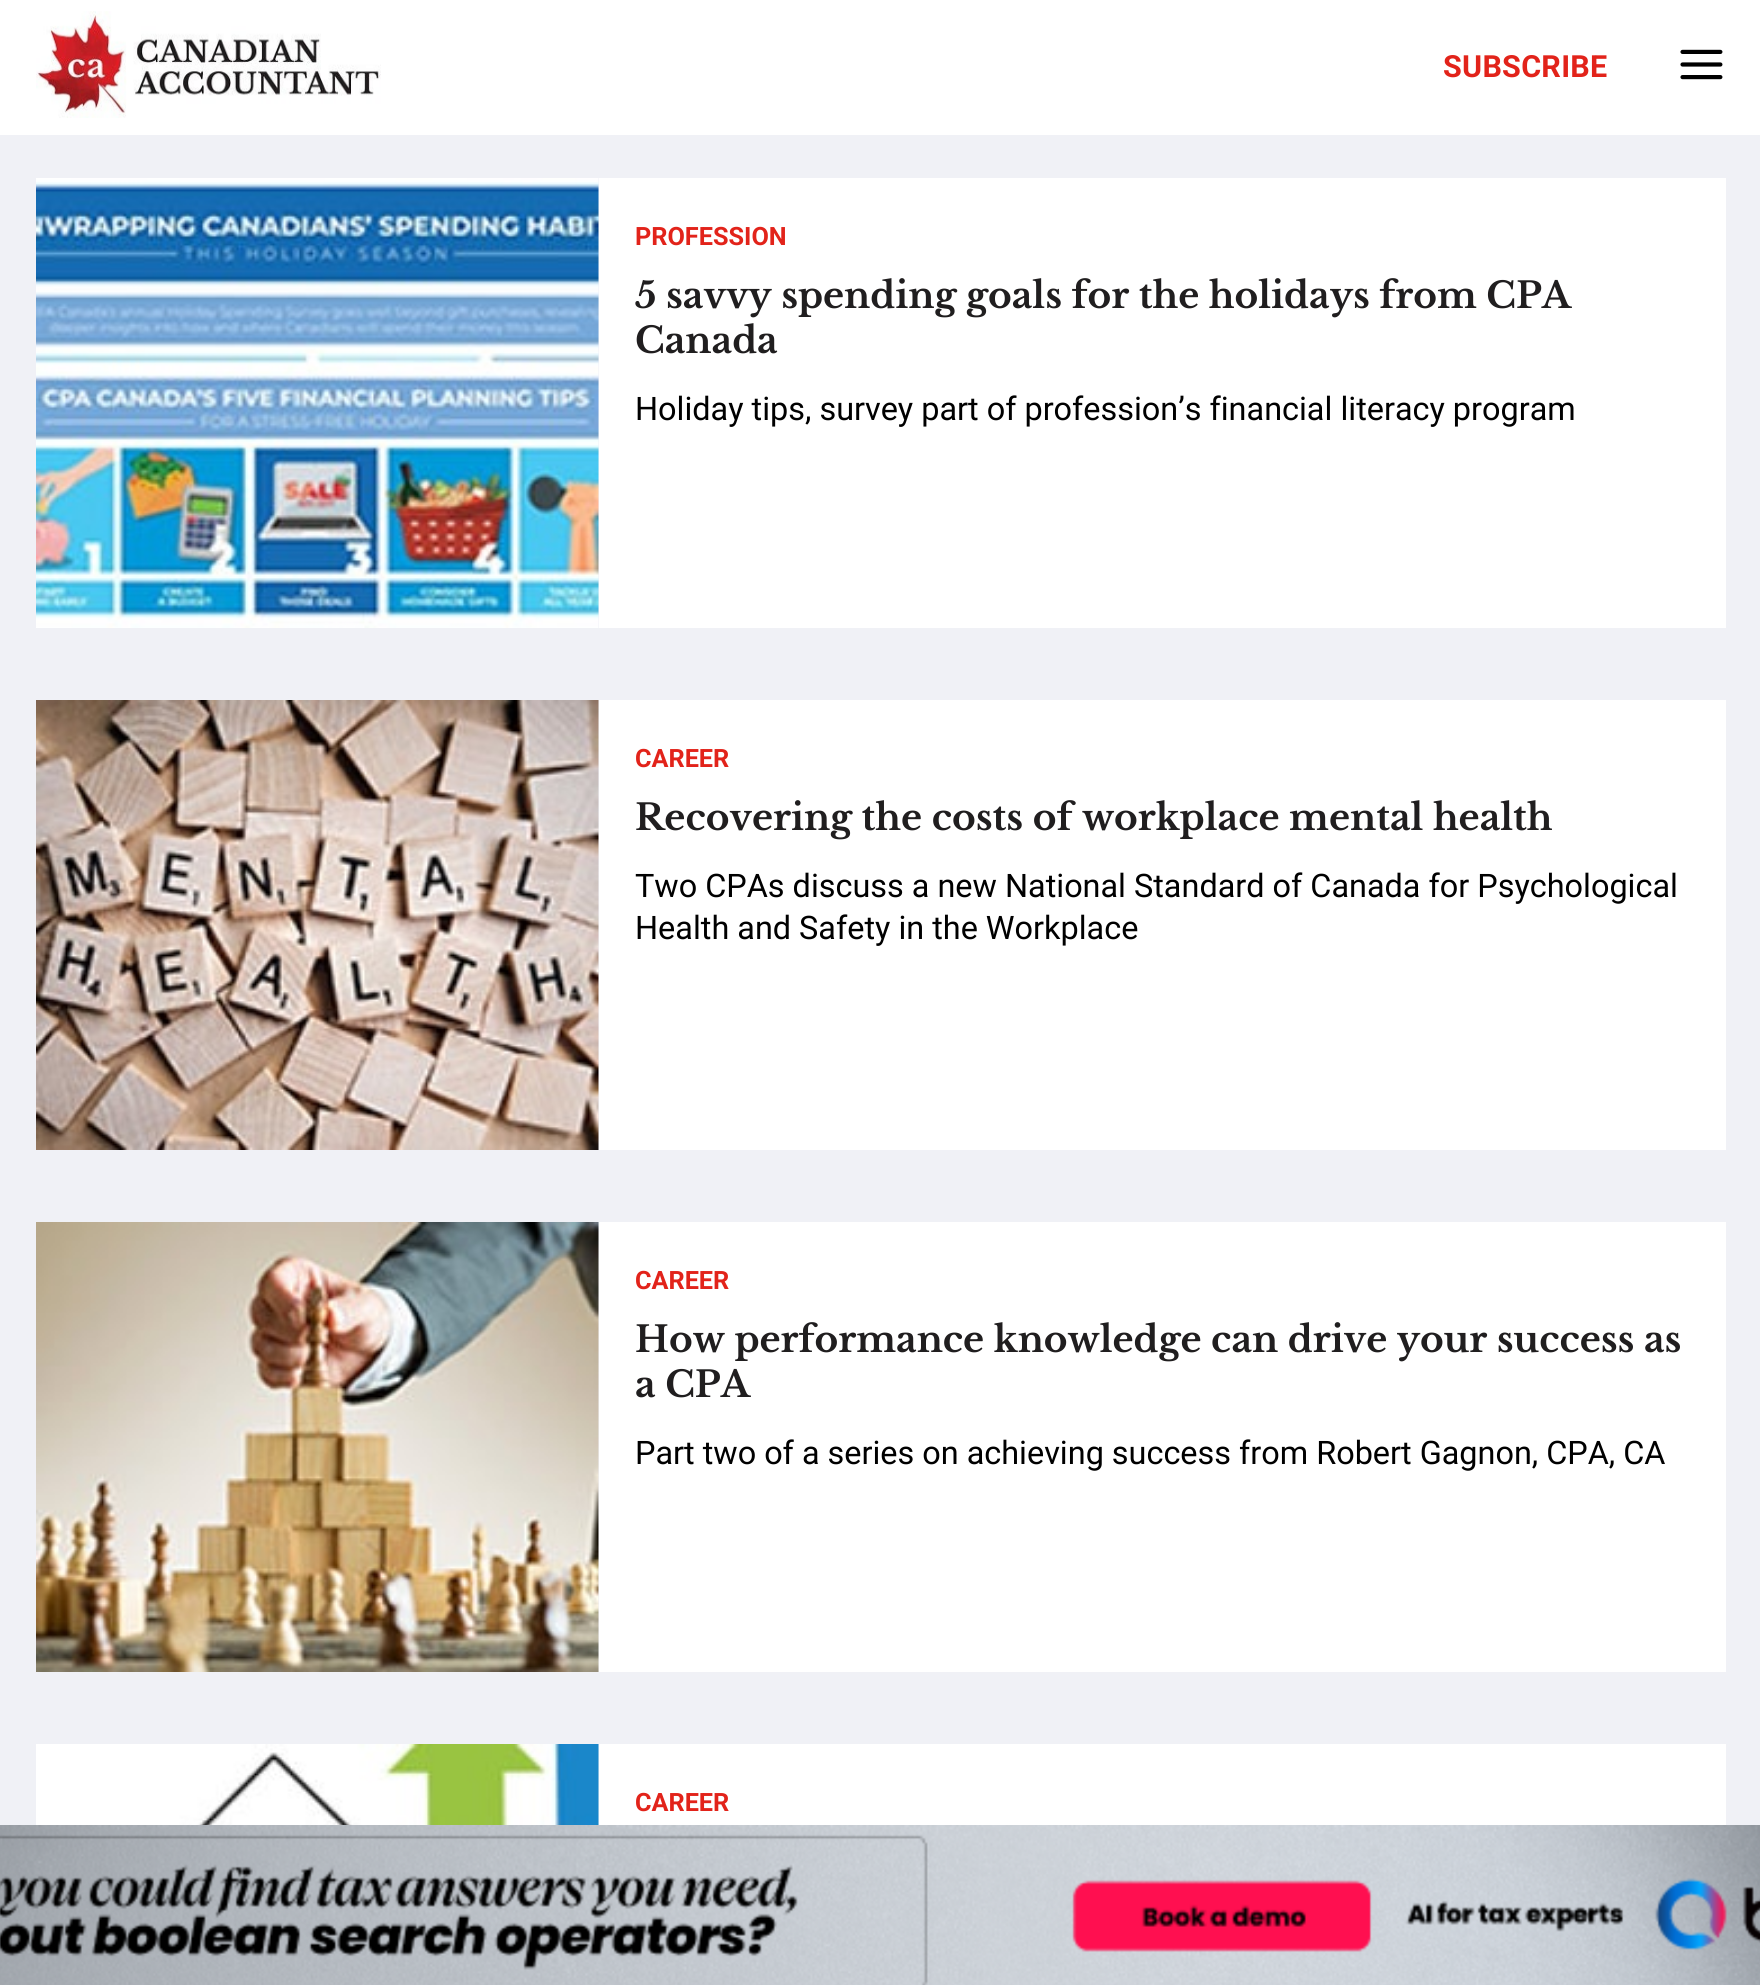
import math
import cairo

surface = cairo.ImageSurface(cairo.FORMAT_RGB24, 1760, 1985)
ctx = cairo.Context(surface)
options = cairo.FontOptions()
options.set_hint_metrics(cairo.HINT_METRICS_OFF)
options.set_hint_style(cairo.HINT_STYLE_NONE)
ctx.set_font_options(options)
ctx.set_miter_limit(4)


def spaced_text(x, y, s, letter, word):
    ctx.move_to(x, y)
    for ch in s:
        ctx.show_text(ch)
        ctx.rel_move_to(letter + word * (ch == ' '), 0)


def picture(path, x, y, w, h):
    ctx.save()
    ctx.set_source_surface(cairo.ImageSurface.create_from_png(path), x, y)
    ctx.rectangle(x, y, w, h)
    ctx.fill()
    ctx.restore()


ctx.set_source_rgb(0.941, 0.945, 0.961)
ctx.paint()
ctx.set_source_rgb(1, 1, 1)
ctx.rectangle(0, 0, 1760, 135)
ctx.fill()
picture("img1.png", 36, 11, 345, 107)
ctx.select_font_face("Roboto", cairo.FONT_SLANT_NORMAL, cairo.FONT_WEIGHT_BOLD)
ctx.set_font_size(30.5)
ctx.set_source_rgb(0.886, 0.137, 0.102)
spaced_text(1443, 77, "SUBSCRIBE", 0.25, 0)
picture("img2.png", 1680, 49, 43, 31)
picture("img3.png", 36, 178, 563, 450)
ctx.set_source_rgb(1, 1, 1)
ctx.rectangle(599, 178, 1127, 450)
ctx.fill()
ctx.set_font_size(25.25)
ctx.set_source_rgb(0.886, 0.137, 0.102)
ctx.move_to(635, 245)
ctx.show_text("PROFESSION")
ctx.select_font_face("Libre Baskerville", cairo.FONT_SLANT_NORMAL, cairo.FONT_WEIGHT_BOLD)
ctx.set_font_size(36)
ctx.set_source_rgb(0.125, 0.118, 0.122)
ctx.move_to(635, 308)
ctx.show_text("5 savvy spending goals for the holidays from CPA")
ctx.move_to(635, 353)
ctx.show_text("Canada")
ctx.select_font_face("Roboto")
ctx.set_font_size(32.4)
ctx.set_source_rgb(0, 0, 0)
ctx.move_to(635, 420)
ctx.show_text("Holiday tips, survey part of profession’s financial literacy program")
picture("img4.png", 36, 700, 563, 450)
ctx.set_source_rgb(1, 1, 1)
ctx.rectangle(599, 700, 1127, 450)
ctx.fill()
ctx.select_font_face("Roboto", cairo.FONT_SLANT_NORMAL, cairo.FONT_WEIGHT_BOLD)
ctx.set_font_size(25.25)
ctx.set_source_rgb(0.886, 0.137, 0.102)
ctx.move_to(635, 767)
ctx.show_text("CAREER")
ctx.select_font_face("Libre Baskerville", cairo.FONT_SLANT_NORMAL, cairo.FONT_WEIGHT_BOLD)
ctx.set_font_size(36)
ctx.set_source_rgb(0.125, 0.118, 0.122)
ctx.move_to(635, 830)
ctx.show_text("Recovering the costs of workplace mental health")
ctx.select_font_face("Roboto")
ctx.set_font_size(32.4)
ctx.set_source_rgb(0, 0, 0)
ctx.move_to(635, 897)
ctx.show_text("Two CPAs discuss a new National Standard of Canada for Psychological")
ctx.move_to(635, 939)
ctx.show_text("Health and Safety in the Workplace")
picture("img5.png", 36, 1222, 563, 450)
ctx.set_source_rgb(1, 1, 1)
ctx.rectangle(599, 1222, 1127, 450)
ctx.fill()
ctx.select_font_face("Roboto", cairo.FONT_SLANT_NORMAL, cairo.FONT_WEIGHT_BOLD)
ctx.set_font_size(25.25)
ctx.set_source_rgb(0.886, 0.137, 0.102)
ctx.move_to(635, 1289)
ctx.show_text("CAREER")
ctx.select_font_face("Libre Baskerville", cairo.FONT_SLANT_NORMAL, cairo.FONT_WEIGHT_BOLD)
ctx.set_font_size(36)
ctx.set_source_rgb(0.125, 0.118, 0.122)
ctx.move_to(635, 1352)
ctx.show_text("How performance knowledge can drive your success as")
ctx.move_to(635, 1397)
ctx.show_text("a CPA")
ctx.select_font_face("Roboto")
ctx.set_font_size(32.4)
ctx.set_source_rgb(0, 0, 0)
ctx.move_to(635, 1464)
ctx.show_text("Part two of a series on achieving success from Robert Gagnon, CPA, CA")
picture("img6.png", 36, 1744, 563, 81)
ctx.set_source_rgb(1, 1, 1)
ctx.rectangle(599, 1744, 1127, 81)
ctx.fill()
ctx.select_font_face("Roboto", cairo.FONT_SLANT_NORMAL, cairo.FONT_WEIGHT_BOLD)
ctx.set_font_size(25.25)
ctx.set_source_rgb(0.886, 0.137, 0.102)
ctx.move_to(635, 1811)
ctx.show_text("CAREER")
picture("img7.png", 0, 1825, 1760, 160)
surface.write_to_png("page.png")
